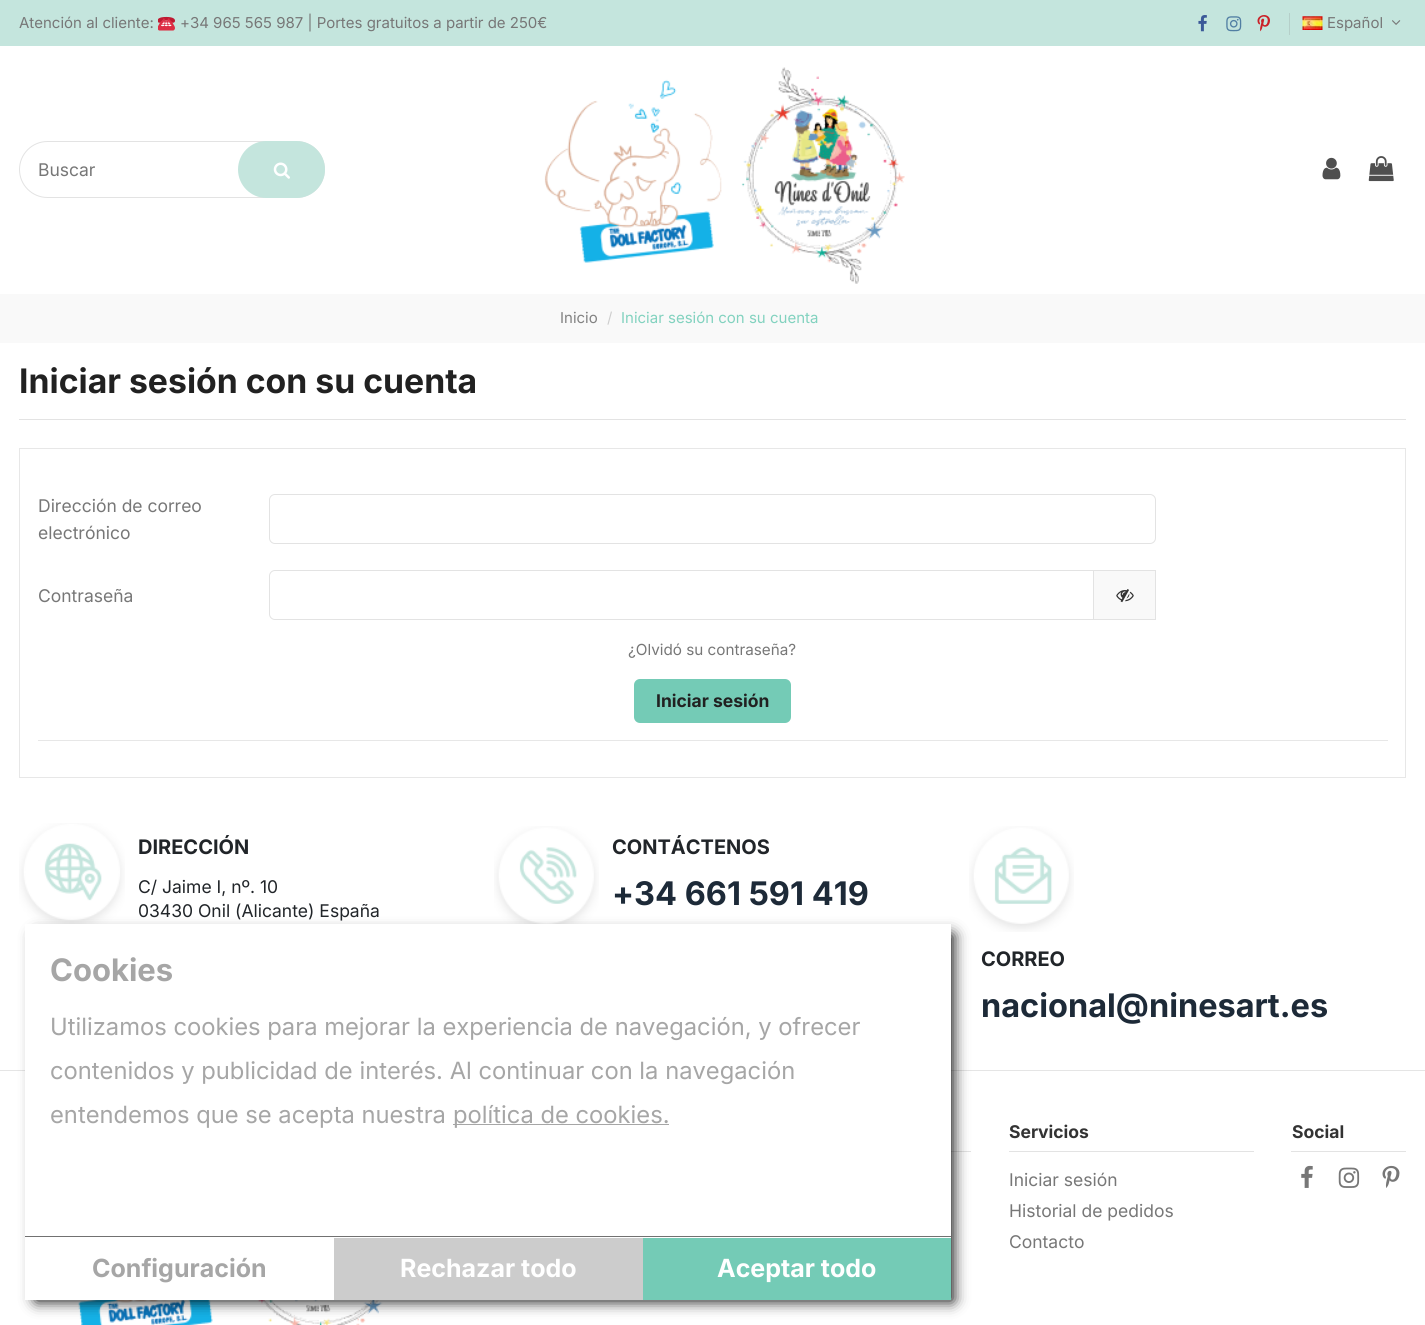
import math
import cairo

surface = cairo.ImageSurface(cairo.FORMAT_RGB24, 1425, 1325)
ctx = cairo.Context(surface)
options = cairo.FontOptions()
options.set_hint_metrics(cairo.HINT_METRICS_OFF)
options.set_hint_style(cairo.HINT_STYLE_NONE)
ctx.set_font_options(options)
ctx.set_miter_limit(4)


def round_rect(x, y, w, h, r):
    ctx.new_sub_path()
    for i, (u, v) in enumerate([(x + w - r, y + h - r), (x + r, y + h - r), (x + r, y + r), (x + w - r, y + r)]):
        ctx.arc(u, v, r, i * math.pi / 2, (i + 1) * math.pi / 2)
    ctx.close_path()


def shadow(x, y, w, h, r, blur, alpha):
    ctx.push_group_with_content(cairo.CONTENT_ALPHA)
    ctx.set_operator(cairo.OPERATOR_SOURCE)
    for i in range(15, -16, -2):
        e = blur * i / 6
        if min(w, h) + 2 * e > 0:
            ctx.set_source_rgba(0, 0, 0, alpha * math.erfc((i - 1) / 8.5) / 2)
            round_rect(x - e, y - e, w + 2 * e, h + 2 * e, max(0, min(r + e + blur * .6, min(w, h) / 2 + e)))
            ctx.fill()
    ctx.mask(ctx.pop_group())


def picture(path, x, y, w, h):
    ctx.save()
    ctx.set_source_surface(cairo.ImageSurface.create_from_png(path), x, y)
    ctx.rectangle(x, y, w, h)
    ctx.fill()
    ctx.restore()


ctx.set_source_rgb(1, 1, 1)
ctx.paint()
ctx.set_source_rgb(0.769, 0.898, 0.867)
ctx.rectangle(0, 0, 1425, 46)
ctx.fill()
ctx.select_font_face("Inter")
ctx.set_font_size(15)
ctx.set_source_rgb(0.467, 0.467, 0.467)
ctx.move_to(19, 28)
ctx.show_text("Atención al cliente:")
picture("img1.png", 158, 16, 17, 15)
ctx.move_to(180, 28)
ctx.show_text("+34 965 565 987 | Portes gratuitos a partir de 250€")
picture("img2.png", 1198, 15, 9, 17)
picture("img3.png", 1226, 16, 16, 16)
picture("img4.png", 1257, 15, 13, 17)
ctx.set_source_rgb(0.71, 0.812, 0.788)
ctx.rectangle(1289, 13, 1, 22)
ctx.fill()
picture("img5.png", 1302, 16, 21, 14)
ctx.set_source_rgb(0.467, 0.467, 0.467)
ctx.move_to(1327, 28)
ctx.show_text("Español")
picture("img6.png", 1392, 20, 9, 5)
round_rect(19.5, 141.5, 305, 56, 28)
ctx.set_source_rgb(0.89, 0.89, 0.89)
ctx.set_line_width(1)
ctx.stroke()
ctx.set_font_size(17.5)
ctx.set_source_rgb(0.467, 0.467, 0.467)
ctx.move_to(38, 176)
ctx.show_text("Buscar")
ctx.set_source_rgb(0.769, 0.898, 0.867)
round_rect(238, 141, 87, 57, 28.5)
ctx.fill()
picture("img7.png", 273, 162, 17, 17)
picture("img8.png", 544, 67, 361, 217)
picture("img9.png", 1322, 157, 19, 23)
picture("img10.png", 1368, 156, 26, 26)
ctx.set_source_rgb(0.973, 0.973, 0.973)
ctx.rectangle(0, 294, 1425, 49)
ctx.fill()
ctx.set_font_size(15)
ctx.set_source_rgb(0.51, 0.51, 0.51)
ctx.move_to(560, 323)
ctx.show_text("Inicio")
ctx.set_source_rgb(0.808, 0.808, 0.808)
ctx.move_to(607, 323)
ctx.show_text("/")
ctx.set_source_rgb(0.51, 0.824, 0.749)
ctx.move_to(621, 323)
ctx.show_text("Iniciar sesión con su cuenta")
ctx.set_source_rgb(0.89, 0.89, 0.89)
ctx.rectangle(19, 419, 1387, 1)
ctx.fill()
ctx.select_font_face("Inter", cairo.FONT_SLANT_NORMAL, cairo.FONT_WEIGHT_BOLD)
ctx.set_font_size(33.75)
ctx.set_source_rgb(0.129, 0.129, 0.129)
ctx.move_to(19, 393)
ctx.show_text("Iniciar sesión con su cuenta")
ctx.rectangle(19.5, 448.5, 1386, 329)
ctx.set_source_rgb(0.906, 0.906, 0.906)
ctx.stroke()
ctx.select_font_face("Inter")
ctx.set_font_size(17.5)
ctx.set_source_rgb(0.467, 0.467, 0.467)
ctx.move_to(38, 512)
ctx.show_text("Dirección de correo")
ctx.move_to(38, 539)
ctx.show_text("electrónico")
round_rect(269.5, 494.5, 886, 49, 5.5)
ctx.set_source_rgb(0.89, 0.89, 0.89)
ctx.stroke()
ctx.set_source_rgb(0.467, 0.467, 0.467)
ctx.move_to(38, 602)
ctx.show_text("Contraseña")
ctx.new_path()
ctx.move_to(275, 570.5)
ctx.line_to(1093.5, 570.5)
ctx.line_to(1093.5, 619.5)
ctx.line_to(275, 619.5)
ctx.curve_to(272, 619.5, 269.5, 617, 269.5, 614)
ctx.line_to(269.5, 576)
ctx.curve_to(269.5, 573, 272, 570.5, 275, 570.5)
ctx.close_path()
ctx.set_source_rgb(0.89, 0.89, 0.89)
ctx.stroke()
ctx.set_source_rgb(0.973, 0.973, 0.973)
ctx.rectangle(1093.5, 570.5, 62, 49)
ctx.fill_preserve()
ctx.set_source_rgb(0.89, 0.89, 0.89)
ctx.stroke()
picture("img11.png", 1116, 589, 18, 14)
ctx.set_font_size(15.25)
ctx.set_source_rgb(0.467, 0.467, 0.467)
ctx.move_to(628, 655)
ctx.show_text("¿Olvidó su contraseña?")
ctx.set_source_rgb(0.455, 0.796, 0.714)
round_rect(634, 679, 157, 44, 6)
ctx.fill()
ctx.select_font_face("Inter", cairo.FONT_SLANT_NORMAL, cairo.FONT_WEIGHT_BOLD)
ctx.set_font_size(17.5)
ctx.set_source_rgb(0.129, 0.129, 0.129)
ctx.move_to(656, 707)
ctx.show_text("Iniciar sesión")
ctx.set_source_rgb(0.906, 0.906, 0.906)
ctx.rectangle(38, 740, 1350, 1)
ctx.fill()
picture("img12.png", 19, 823, 106, 106)
ctx.set_font_size(20)
ctx.set_source_rgb(0.129, 0.145, 0.161)
ctx.move_to(138, 854)
ctx.show_text("DIRECCIÓN")
ctx.select_font_face("Inter")
ctx.set_font_size(17.5)
ctx.move_to(138, 893)
ctx.show_text("C/ Jaime I, nº. 10")
ctx.move_to(138, 917)
ctx.show_text("03430 Onil (Alicante) España")
picture("img13.png", 494, 826, 105, 98)
ctx.select_font_face("Inter", cairo.FONT_SLANT_NORMAL, cairo.FONT_WEIGHT_BOLD)
ctx.set_font_size(20)
ctx.move_to(612, 854)
ctx.show_text("CONTÁCTENOS")
ctx.set_font_size(32.5)
ctx.set_source_rgb(0.114, 0.165, 0.22)
ctx.move_to(612, 905)
ctx.show_text("+34 661 591 419")
picture("img14.png", 969, 826, 105, 106)
ctx.set_font_size(20)
ctx.set_source_rgb(0.129, 0.145, 0.161)
ctx.move_to(981, 966)
ctx.show_text("CORREO")
ctx.set_font_size(32.5)
ctx.set_source_rgb(0.114, 0.165, 0.22)
ctx.move_to(981, 1017)
ctx.show_text("nacional@ninesart.es")
ctx.set_source_rgb(0.898, 0.898, 0.898)
ctx.rectangle(0, 1070, 1425, 1)
ctx.fill()
ctx.set_source_rgb(0.89, 0.89, 0.89)
ctx.rectangle(951, 1151, 20, 1)
ctx.fill()
picture("img18.png", 78, 1300, 305, 25)
ctx.set_source_rgb(0, 0, 0)
shadow(36, 935, 917, 366, 0, 7.5, 1)
ctx.set_source_rgb(1, 1, 1)
ctx.rectangle(25, 924, 926, 376)
ctx.fill()
ctx.set_font_size(31)
ctx.set_source_rgb(0.651, 0.651, 0.651)
ctx.move_to(50, 981)
ctx.show_text("Cookies")
ctx.select_font_face("Inter")
ctx.set_font_size(23.75)
ctx.move_to(50, 1035)
ctx.show_text("Utilizamos cookies para mejorar la experiencia de navegación, y ofrecer")
ctx.move_to(50, 1079)
ctx.show_text("contenidos y publicidad de interés. Al continuar con la navegación")
ctx.move_to(50, 1123)
ctx.show_text("entendemos que se acepta nuestra")
ctx.rectangle(453, 1124, 216, 1)
ctx.fill()
ctx.move_to(453, 1123)
ctx.show_text("política de cookies.")
ctx.set_source_rgb(0.443, 0.443, 0.443)
ctx.rectangle(25, 1236, 926, 1)
ctx.fill()
ctx.select_font_face("Inter", cairo.FONT_SLANT_NORMAL, cairo.FONT_WEIGHT_BOLD)
ctx.set_font_size(25)
ctx.set_source_rgb(0.651, 0.651, 0.651)
ctx.move_to(92, 1277)
ctx.show_text("Configuración")
ctx.set_source_rgb(0.8, 0.8, 0.8)
ctx.rectangle(334, 1238, 309, 62)
ctx.fill()
ctx.set_source_rgb(1, 1, 1)
ctx.move_to(400, 1277)
ctx.show_text("Rechazar todo")
ctx.set_source_rgb(0.455, 0.796, 0.714)
ctx.rectangle(643, 1238, 308, 62)
ctx.fill()
ctx.set_source_rgb(1, 1, 1)
ctx.move_to(717, 1277)
ctx.show_text("Aceptar todo")
ctx.set_source_rgb(0.89, 0.89, 0.89)
ctx.rectangle(1009, 1151, 245, 1)
ctx.fill()
ctx.set_font_size(17.5)
ctx.set_source_rgb(0.2, 0.2, 0.2)
ctx.move_to(1009, 1138)
ctx.show_text("Servicios")
ctx.select_font_face("Inter")
ctx.set_source_rgb(0.467, 0.467, 0.467)
ctx.move_to(1009, 1186)
ctx.show_text("Iniciar sesión")
ctx.move_to(1009, 1217)
ctx.show_text("Historial de pedidos")
ctx.move_to(1009, 1248)
ctx.show_text("Contacto")
ctx.set_source_rgb(0.89, 0.89, 0.89)
ctx.rectangle(1291, 1151, 115, 1)
ctx.fill()
ctx.select_font_face("Inter", cairo.FONT_SLANT_NORMAL, cairo.FONT_WEIGHT_BOLD)
ctx.set_source_rgb(0.2, 0.2, 0.2)
ctx.move_to(1292, 1138)
ctx.show_text("Social")
picture("img15.png", 1301, 1165, 12, 23)
picture("img16.png", 1338, 1167, 22, 21)
picture("img17.png", 1382, 1165, 18, 23)
surface.write_to_png("page.png")
